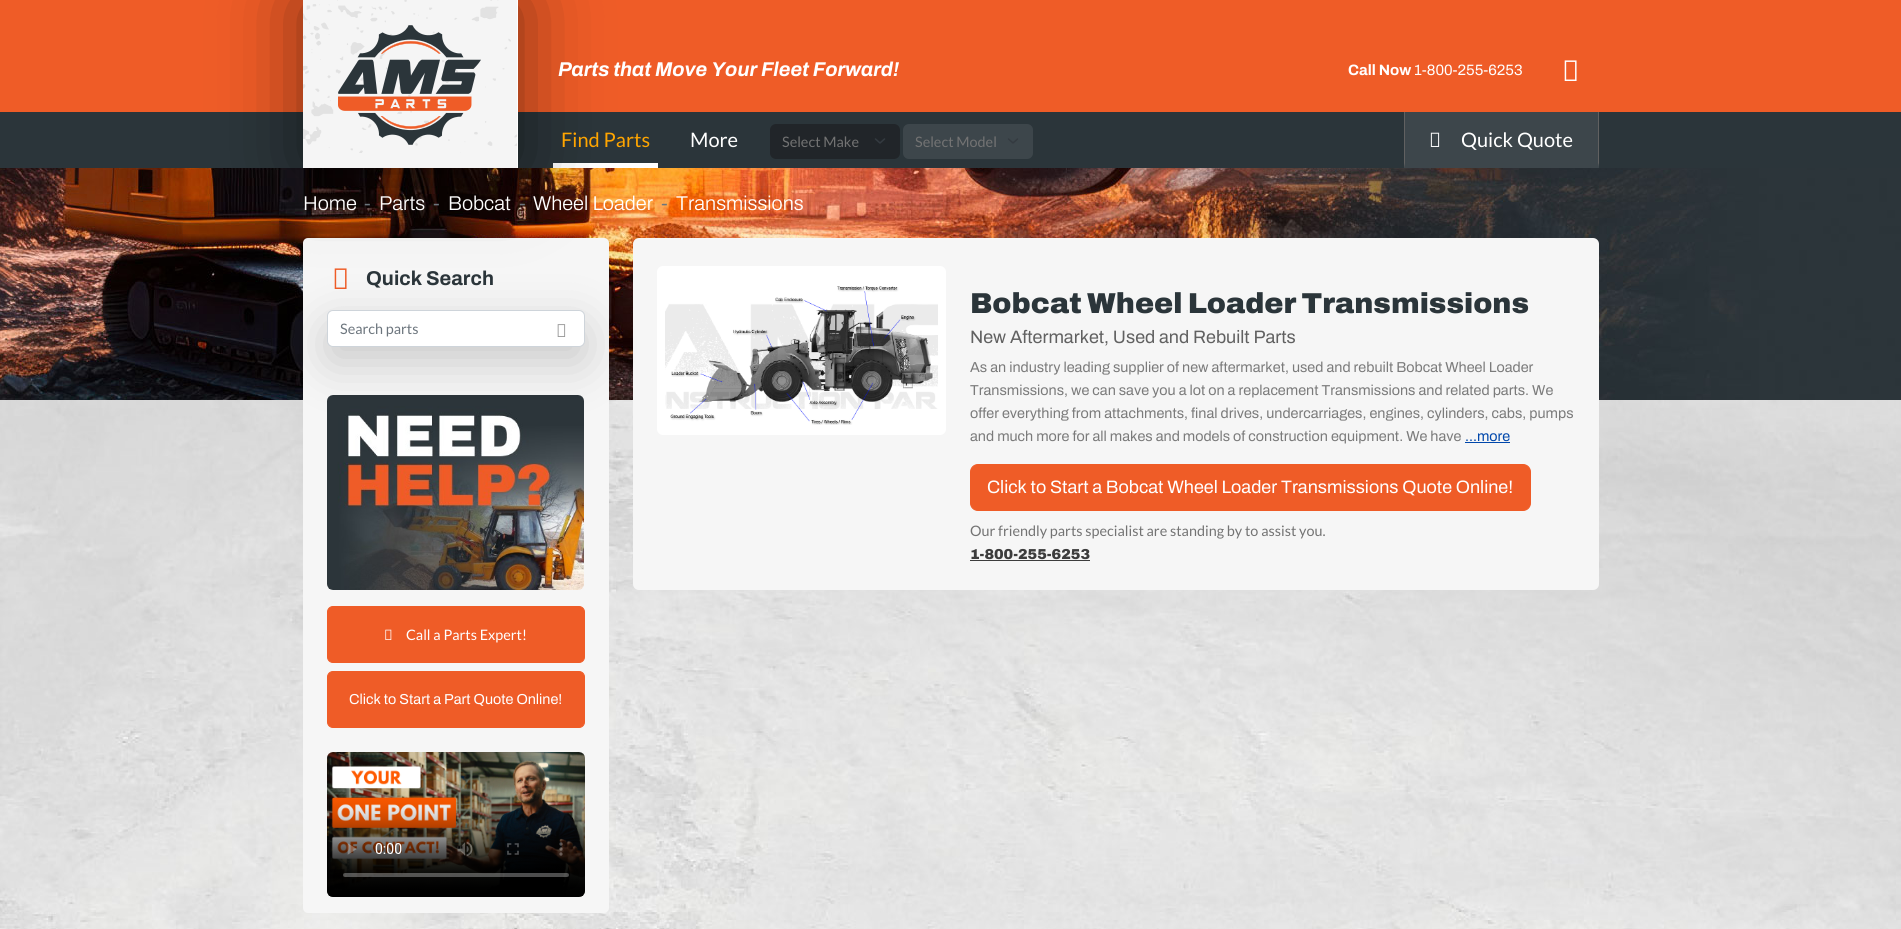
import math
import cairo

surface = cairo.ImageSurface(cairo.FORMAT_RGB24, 1901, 929)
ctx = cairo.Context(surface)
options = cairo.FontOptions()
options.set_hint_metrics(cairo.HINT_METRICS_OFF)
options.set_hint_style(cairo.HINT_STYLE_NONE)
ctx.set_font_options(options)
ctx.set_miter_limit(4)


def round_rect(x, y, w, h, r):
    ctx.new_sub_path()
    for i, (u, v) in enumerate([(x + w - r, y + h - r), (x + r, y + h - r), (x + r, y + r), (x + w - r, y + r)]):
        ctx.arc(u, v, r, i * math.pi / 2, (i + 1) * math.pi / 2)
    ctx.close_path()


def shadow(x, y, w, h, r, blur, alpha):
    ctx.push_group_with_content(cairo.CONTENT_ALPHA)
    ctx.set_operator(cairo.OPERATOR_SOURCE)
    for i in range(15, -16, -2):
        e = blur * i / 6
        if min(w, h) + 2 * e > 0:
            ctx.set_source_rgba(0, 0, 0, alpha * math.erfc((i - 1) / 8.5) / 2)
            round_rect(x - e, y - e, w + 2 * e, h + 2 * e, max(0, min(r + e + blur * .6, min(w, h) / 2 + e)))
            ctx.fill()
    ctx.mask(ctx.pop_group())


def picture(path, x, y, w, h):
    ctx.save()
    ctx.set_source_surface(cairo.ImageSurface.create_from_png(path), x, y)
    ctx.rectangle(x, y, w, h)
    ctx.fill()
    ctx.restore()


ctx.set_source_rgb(0.937, 0.361, 0.153)
ctx.paint()
ctx.set_source_rgb(0.169, 0.208, 0.227)
ctx.rectangle(0, 112, 1901, 56)
ctx.fill()
ctx.set_source_rgb(1, 1, 1)
ctx.rectangle(553, 163, 105, 5)
ctx.fill()
picture("img5.png", 0, 168, 1901, 232)
picture("img6.png", 0, 400, 1901, 529)
ctx.set_source_rgb(0.961, 0.961, 0.961)
round_rect(303, 238, 306, 675, 5)
ctx.fill()
picture("img7.png", 334, 268, 13, 21)
round_rect(633, 238, 966, 352, 6)
ctx.fill()
ctx.set_source_rgb(0, 0, 0)
shadow(303, 0, 215, 168, 0, 40, 0.5)
ctx.set_source_rgb(1, 1, 1)
ctx.rectangle(517, 0, 1, 168)
ctx.fill()
picture("img1.png", 303, 0, 214, 168)
picture("img2.png", 338, 25, 143, 120)
ctx.select_font_face("Archivo", cairo.FONT_SLANT_ITALIC, cairo.FONT_WEIGHT_BOLD)
ctx.set_font_size(20)
ctx.move_to(558, 76)
ctx.show_text("Parts that Move Your Fleet Forward!")
ctx.select_font_face("Archivo", cairo.FONT_SLANT_NORMAL, cairo.FONT_WEIGHT_BOLD)
ctx.set_font_size(15)
ctx.move_to(1348, 75)
ctx.show_text("Call Now")
ctx.select_font_face("Archivo")
ctx.move_to(1414, 75)
ctx.show_text("1-800-255-6253")
picture("img3.png", 1564, 60, 13, 21)
ctx.select_font_face("Lato")
ctx.set_font_size(20)
ctx.set_source_rgb(1, 0.647, 0)
ctx.move_to(561, 147)
ctx.show_text("Find Parts")
ctx.set_source_rgb(1, 1, 1)
ctx.move_to(690, 147)
ctx.show_text("More")
ctx.set_source_rgb(0.129, 0.145, 0.161)
round_rect(770, 124, 130, 35, 6)
ctx.fill()
ctx.new_path()
ctx.move_to(875.5, 139)
ctx.line_to(880, 143)
ctx.line_to(884.5, 139)
ctx.set_source_rgb(0.204, 0.227, 0.251)
ctx.set_line_width(1.5)
ctx.set_line_cap(cairo.LINE_CAP_ROUND)
ctx.set_line_join(cairo.LINE_JOIN_ROUND)
ctx.stroke()
ctx.set_font_size(14.4)
ctx.set_source_rgb(0.451, 0.451, 0.451)
ctx.move_to(782, 147)
ctx.show_text("Select Make")
ctx.set_source_rgb(0.239, 0.275, 0.294)
round_rect(903, 124, 130, 35, 6)
ctx.fill()
ctx.new_path()
ctx.move_to(1008.5, 139)
ctx.line_to(1013, 143)
ctx.line_to(1017.5, 139)
ctx.set_source_rgb(0.204, 0.227, 0.251)
ctx.stroke()
ctx.set_source_rgb(0.451, 0.451, 0.451)
ctx.move_to(915, 147)
ctx.show_text("Select Model")
ctx.set_source_rgb(0.239, 0.275, 0.294)
ctx.rectangle(1404, 112, 195, 56)
ctx.fill()
ctx.set_source_rgb(0.38, 0.38, 0.38)
ctx.new_path()
ctx.move_to(1599, 112)
ctx.line_to(1599, 168)
ctx.line_to(1598, 163)
ctx.line_to(1598, 112)
ctx.close_path()
ctx.fill()
ctx.set_source_rgb(0.239, 0.275, 0.294)
ctx.new_path()
ctx.move_to(1599, 168)
ctx.line_to(1404, 168)
ctx.line_to(1405, 163)
ctx.line_to(1598, 163)
ctx.close_path()
ctx.fill()
ctx.set_source_rgb(0.38, 0.38, 0.38)
ctx.new_path()
ctx.move_to(1404, 168)
ctx.line_to(1404, 112)
ctx.line_to(1405, 112)
ctx.line_to(1405, 163)
ctx.close_path()
ctx.fill()
picture("img4.png", 1430, 132, 10, 15)
ctx.set_font_size(20)
ctx.set_source_rgb(1, 1, 1)
ctx.move_to(1461, 147)
ctx.show_text("Quick Quote")
ctx.select_font_face("Archivo Light")
ctx.move_to(303, 210)
ctx.show_text("Home")
ctx.set_source_rgb(0.424, 0.459, 0.49)
ctx.move_to(364, 210)
ctx.show_text("-")
ctx.set_source_rgb(1, 1, 1)
ctx.move_to(379, 210)
ctx.show_text("Parts")
ctx.set_source_rgb(0.424, 0.459, 0.49)
ctx.move_to(433, 210)
ctx.show_text("-")
ctx.set_source_rgb(1, 1, 1)
ctx.move_to(448, 210)
ctx.show_text("Bobcat")
ctx.set_source_rgb(0.424, 0.459, 0.49)
ctx.move_to(519, 210)
ctx.show_text("-")
ctx.set_source_rgb(1, 1, 1)
ctx.move_to(533, 210)
ctx.show_text("Wheel Loader")
ctx.set_source_rgb(0.424, 0.459, 0.49)
ctx.move_to(661, 210)
ctx.show_text("-")
ctx.set_source_rgb(1, 1, 1)
ctx.move_to(676, 210)
ctx.show_text("Transmissions")
ctx.select_font_face("Archivo", cairo.FONT_SLANT_NORMAL, cairo.FONT_WEIGHT_BOLD)
ctx.set_source_rgb(0.169, 0.208, 0.227)
ctx.move_to(366, 285)
ctx.show_text("Quick Search")
picture("img9.png", 327, 395, 257, 195)
ctx.set_source_rgb(1, 1, 1)
round_rect(657, 266, 289, 169, 6)
ctx.fill()
ctx.set_source_rgb(0, 0, 0)
shadow(327, 326, 258, 37, 6, 24, 0.18)
ctx.set_source_rgb(1, 1, 1)
round_rect(327.5, 310.5, 257, 36, 5.5)
ctx.fill_preserve()
ctx.set_source_rgb(0.808, 0.831, 0.855)
ctx.set_line_width(1)
ctx.set_line_cap(cairo.LINE_CAP_BUTT)
ctx.set_line_join(cairo.LINE_JOIN_MITER)
ctx.stroke()
ctx.select_font_face("Lato")
ctx.set_font_size(14.4)
ctx.set_source_rgb(0.424, 0.459, 0.49)
ctx.move_to(340, 334)
ctx.show_text("Search parts")
picture("img8.png", 557, 324, 9, 13)
ctx.set_source_rgb(0.937, 0.361, 0.153)
round_rect(327.5, 606.5, 257, 56, 5.5)
ctx.fill_preserve()
ctx.stroke()
picture("img10.png", 385, 629, 7, 11)
ctx.set_source_rgb(1, 1, 1)
ctx.move_to(406, 640)
ctx.show_text("Call a Parts Expert!")
ctx.set_source_rgb(0.937, 0.361, 0.153)
round_rect(327.5, 671.5, 257, 56, 5.5)
ctx.fill_preserve()
ctx.stroke()
ctx.select_font_face("Archivo")
ctx.set_source_rgb(1, 1, 1)
ctx.move_to(349, 704)
ctx.show_text("Click to Start a Part Quote Online!")
picture("img11.png", 327, 752, 258, 145)
picture("img12.png", 665, 286, 273, 139)
ctx.select_font_face("Archivo Black")
ctx.set_font_size(28.75)
ctx.set_source_rgb(0.169, 0.208, 0.227)
ctx.move_to(970, 313)
ctx.show_text("Bobcat Wheel Loader Transmissions")
ctx.select_font_face("Archivo")
ctx.set_font_size(18)
ctx.set_source_rgb(0.38, 0.38, 0.38)
ctx.move_to(970, 343)
ctx.show_text("New Aftermarket, Used and Rebuilt Parts")
ctx.set_font_size(14.4)
ctx.set_source_rgb(0.482, 0.482, 0.482)
ctx.move_to(970, 372)
ctx.show_text("As an industry leading supplier of new aftermarket, used and rebuilt Bobcat Wheel Loader")
ctx.move_to(970, 395)
ctx.show_text("Transmissions, we can save you a lot on a replacement Transmissions and related parts. We")
ctx.move_to(970, 418)
ctx.show_text("offer everything from attachments, final drives, undercarriages, engines, cylinders, cabs, pumps")
ctx.move_to(970, 441)
ctx.show_text("and much more for all makes and models of construction equipment. We have")
ctx.set_source_rgb(0, 0.278, 0.671)
ctx.move_to(1465, 441)
ctx.show_text("...more")
ctx.rectangle(1465, 442, 45, 1)
ctx.fill()
ctx.set_source_rgb(0.937, 0.361, 0.153)
round_rect(970.5, 464.5, 560, 46, 7.5)
ctx.fill_preserve()
ctx.stroke()
ctx.set_font_size(18)
ctx.set_source_rgb(1, 1, 1)
ctx.move_to(987, 493)
ctx.show_text("Click to Start a Bobcat Wheel Loader Transmissions Quote Online!")
ctx.select_font_face("Lato")
ctx.set_font_size(14.4)
ctx.set_source_rgb(0.451, 0.451, 0.451)
ctx.move_to(970, 536)
ctx.show_text("Our friendly parts specialist are standing by to assist you.")
ctx.select_font_face("Archivo Black")
ctx.set_source_rgb(0.239, 0.239, 0.239)
ctx.move_to(970, 559)
ctx.show_text("1-800-255-6253")
ctx.rectangle(970, 560, 120, 1)
ctx.fill()
surface.write_to_png("page.png")
